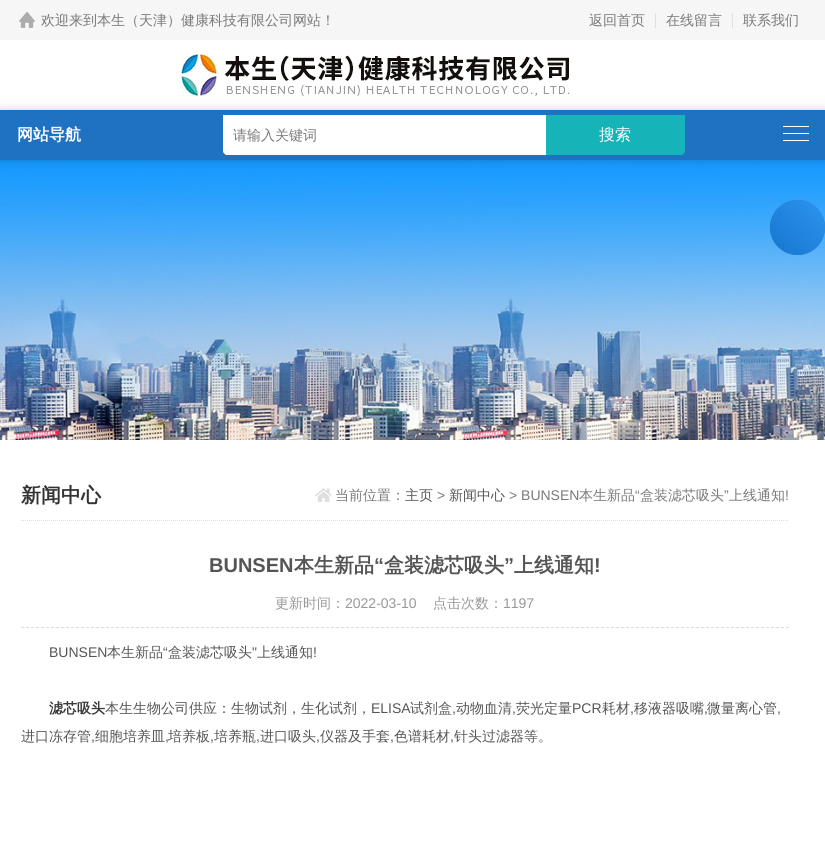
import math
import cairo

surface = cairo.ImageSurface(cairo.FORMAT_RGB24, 825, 842)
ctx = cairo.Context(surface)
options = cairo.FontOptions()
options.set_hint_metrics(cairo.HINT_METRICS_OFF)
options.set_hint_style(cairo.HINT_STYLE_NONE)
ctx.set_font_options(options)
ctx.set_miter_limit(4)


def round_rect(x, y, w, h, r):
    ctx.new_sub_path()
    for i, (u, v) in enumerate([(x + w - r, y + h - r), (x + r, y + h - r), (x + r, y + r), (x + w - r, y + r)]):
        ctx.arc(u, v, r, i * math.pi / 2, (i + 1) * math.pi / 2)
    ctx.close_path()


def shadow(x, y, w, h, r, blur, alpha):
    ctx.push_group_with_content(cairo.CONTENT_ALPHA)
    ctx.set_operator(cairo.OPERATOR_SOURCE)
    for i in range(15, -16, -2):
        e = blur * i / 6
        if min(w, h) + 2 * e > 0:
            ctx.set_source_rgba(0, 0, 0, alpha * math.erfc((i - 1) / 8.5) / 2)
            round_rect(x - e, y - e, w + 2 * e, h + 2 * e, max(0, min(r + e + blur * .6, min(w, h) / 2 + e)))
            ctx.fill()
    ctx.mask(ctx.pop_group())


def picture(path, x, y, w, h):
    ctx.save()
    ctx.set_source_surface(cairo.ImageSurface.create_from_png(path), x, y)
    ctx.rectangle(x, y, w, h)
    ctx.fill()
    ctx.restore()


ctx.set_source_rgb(1, 1, 1)
ctx.paint()
ctx.set_source_rgb(0.961, 0.961, 0.961)
ctx.rectangle(0, 0, 825, 40)
ctx.fill()
picture("img1.png", 19, 12, 16, 16)
ctx.select_font_face("WenQuanYi Zen Hei Medium")
ctx.set_font_size(14)
ctx.set_source_rgb(0.475, 0.475, 0.475)
ctx.move_to(41, 25)
ctx.show_text("欢迎来到本生（天津）健康科技有限公司网站！")
ctx.move_to(589, 25)
ctx.show_text("返回首页")
ctx.set_source_rgb(0.875, 0.875, 0.875)
ctx.rectangle(655, 13, 1, 15)
ctx.fill()
ctx.set_source_rgb(0.475, 0.475, 0.475)
ctx.move_to(666, 25)
ctx.show_text("在线留言")
ctx.set_source_rgb(0.875, 0.875, 0.875)
ctx.rectangle(732, 13, 1, 15)
ctx.fill()
ctx.set_source_rgb(0.475, 0.475, 0.475)
ctx.move_to(743, 25)
ctx.show_text("联系我们")
picture("img2.png", 181, 54, 389, 42)
picture("img3.png", 0, 160, 825, 280)
ctx.set_source_rgb(0, 0, 0)
shadow(0, 110, 825, 50, 0, 5, 0.2)
ctx.set_source_rgb(0.122, 0.443, 0.761)
ctx.rectangle(0, 110, 825, 50)
ctx.fill()
ctx.select_font_face("WenQuanYi Zen Hei", cairo.FONT_SLANT_NORMAL, cairo.FONT_WEIGHT_BOLD)
ctx.set_font_size(16)
ctx.set_source_rgb(1, 1, 1)
ctx.move_to(17, 140)
ctx.show_text("网站导航")
ctx.rectangle(783, 126, 26, 1)
ctx.fill()
ctx.rectangle(783, 133, 26, 1)
ctx.fill()
ctx.rectangle(783, 140, 26, 1)
ctx.fill()
ctx.new_path()
ctx.move_to(223, 115)
ctx.line_to(546, 115)
ctx.line_to(546, 155)
ctx.line_to(227, 155)
ctx.curve_to(225, 155, 223, 153, 223, 151)
ctx.close_path()
ctx.fill()
ctx.select_font_face("WenQuanYi Zen Hei Medium")
ctx.set_font_size(14)
ctx.set_source_rgb(0.475, 0.475, 0.475)
ctx.move_to(233, 140)
ctx.show_text("请输入关键词")
ctx.set_source_rgb(0.086, 0.706, 0.725)
ctx.new_path()
ctx.move_to(546, 115)
ctx.line_to(685, 115)
ctx.line_to(685, 151)
ctx.curve_to(685, 153, 683, 155, 681, 155)
ctx.line_to(546, 155)
ctx.close_path()
ctx.fill()
ctx.set_font_size(16)
ctx.set_source_rgb(1, 1, 1)
ctx.move_to(599, 140)
ctx.show_text("搜索")
ctx.set_source_rgba(0.122, 0.443, 0.761, 0.9)
ctx.new_path()
ctx.arc(797.5, 227.5, 27.5, 0, 2 * math.pi)
ctx.fill()
gradient = cairo.LinearGradient(770, 255, 825, 200)
gradient.add_color_stop_rgba(0, 0.078, 0.459, 0.812, 0.9)
gradient.add_color_stop_rgba(1, 0.184, 0.596, 0.957, 0.9)
ctx.set_source(gradient)
ctx.arc(797.5, 227.5, 27.5, 0, 2 * math.pi)
ctx.fill()
ctx.new_path()
ctx.move_to(21, 520.5)
ctx.line_to(789, 520.5)
ctx.set_source_rgb(0.871, 0.871, 0.871)
ctx.set_line_width(1)
ctx.set_dash([1, 1])
ctx.stroke()
ctx.select_font_face("WenQuanYi Zen Hei", cairo.FONT_SLANT_NORMAL, cairo.FONT_WEIGHT_BOLD)
ctx.set_font_size(20)
ctx.set_source_rgb(0.2, 0.2, 0.2)
ctx.move_to(21, 502)
ctx.show_text("新闻中心")
picture("img4.png", 315, 488, 16, 14)
ctx.select_font_face("WenQuanYi Zen Hei Medium")
ctx.set_font_size(14)
ctx.set_source_rgb(0.475, 0.475, 0.475)
ctx.move_to(335, 500)
ctx.show_text("当前位置：")
ctx.set_source_rgb(0.333, 0.333, 0.333)
ctx.move_to(405, 500)
ctx.show_text("主页")
ctx.select_font_face("Liberation Sans")
ctx.set_source_rgb(0.475, 0.475, 0.475)
ctx.move_to(437, 500)
ctx.show_text(">")
ctx.select_font_face("WenQuanYi Zen Hei Medium")
ctx.set_source_rgb(0.333, 0.333, 0.333)
ctx.move_to(449, 500)
ctx.show_text("新闻中心")
ctx.select_font_face("Liberation Sans")
ctx.set_source_rgb(0.475, 0.475, 0.475)
ctx.move_to(509, 500)
ctx.show_text("> BUNSEN")
ctx.select_font_face("WenQuanYi Zen Hei Medium")
ctx.move_to(579, 500)
ctx.show_text("本生新品")
ctx.select_font_face("Liberation Sans")
ctx.move_to(635, 500)
ctx.show_text("“")
ctx.select_font_face("WenQuanYi Zen Hei Medium")
ctx.move_to(640, 500)
ctx.show_text("盒装滤芯吸头")
ctx.select_font_face("Liberation Sans")
ctx.move_to(724, 500)
ctx.show_text("”")
ctx.select_font_face("WenQuanYi Zen Hei Medium")
ctx.move_to(729, 500)
ctx.show_text("上线通知")
ctx.select_font_face("Liberation Sans")
ctx.move_to(785, 500)
ctx.show_text("!")
ctx.select_font_face("Liberation Sans", cairo.FONT_SLANT_NORMAL, cairo.FONT_WEIGHT_BOLD)
ctx.set_font_size(20)
ctx.set_source_rgb(0.333, 0.333, 0.333)
ctx.move_to(209, 572)
ctx.show_text("BUNSEN")
ctx.select_font_face("WenQuanYi Zen Hei", cairo.FONT_SLANT_NORMAL, cairo.FONT_WEIGHT_BOLD)
ctx.move_to(294, 572)
ctx.show_text("本生新品")
ctx.select_font_face("Liberation Sans", cairo.FONT_SLANT_NORMAL, cairo.FONT_WEIGHT_BOLD)
ctx.move_to(374, 572)
ctx.show_text("“")
ctx.select_font_face("WenQuanYi Zen Hei", cairo.FONT_SLANT_NORMAL, cairo.FONT_WEIGHT_BOLD)
ctx.move_to(384, 572)
ctx.show_text("盒装滤芯吸头")
ctx.select_font_face("Liberation Sans", cairo.FONT_SLANT_NORMAL, cairo.FONT_WEIGHT_BOLD)
ctx.move_to(504, 572)
ctx.show_text("”")
ctx.select_font_face("WenQuanYi Zen Hei", cairo.FONT_SLANT_NORMAL, cairo.FONT_WEIGHT_BOLD)
ctx.move_to(514, 572)
ctx.show_text("上线通知")
ctx.select_font_face("Liberation Sans", cairo.FONT_SLANT_NORMAL, cairo.FONT_WEIGHT_BOLD)
ctx.move_to(594, 572)
ctx.show_text("!")
ctx.new_path()
ctx.move_to(21, 627.5)
ctx.line_to(789, 627.5)
ctx.set_source_rgb(0.871, 0.871, 0.871)
ctx.set_dash([3, 2])
ctx.stroke()
ctx.select_font_face("WenQuanYi Zen Hei Medium")
ctx.set_font_size(14)
ctx.set_source_rgb(0.6, 0.6, 0.6)
ctx.move_to(275, 608)
ctx.show_text("更新时间：")
ctx.select_font_face("Liberation Sans")
ctx.move_to(345, 608)
ctx.show_text("2022-03-10")
ctx.select_font_face("WenQuanYi Zen Hei Medium")
ctx.move_to(433, 608)
ctx.show_text("点击次数：")
ctx.select_font_face("Liberation Sans")
ctx.move_to(503, 608)
ctx.show_text("1197")
ctx.set_source_rgb(0.333, 0.333, 0.333)
ctx.move_to(49, 657)
ctx.show_text("BUNSEN")
ctx.select_font_face("WenQuanYi Zen Hei Medium")
ctx.move_to(107, 657)
ctx.show_text("本生新品")
ctx.select_font_face("Liberation Sans")
ctx.move_to(163, 657)
ctx.show_text("“")
ctx.select_font_face("WenQuanYi Zen Hei Medium")
ctx.move_to(168, 657)
ctx.show_text("盒装滤芯吸头")
ctx.select_font_face("Liberation Sans")
ctx.move_to(252, 657)
ctx.show_text("\"")
ctx.select_font_face("WenQuanYi Zen Hei Medium")
ctx.move_to(257, 657)
ctx.show_text("上线通知")
ctx.select_font_face("Liberation Sans")
ctx.move_to(313, 657)
ctx.show_text("!")
ctx.select_font_face("WenQuanYi Zen Hei", cairo.FONT_SLANT_NORMAL, cairo.FONT_WEIGHT_BOLD)
ctx.set_source_rgb(0.227, 0.227, 0.227)
ctx.move_to(49, 713)
ctx.show_text("滤芯吸头")
ctx.select_font_face("WenQuanYi Zen Hei Medium")
ctx.set_source_rgb(0.333, 0.333, 0.333)
ctx.move_to(105, 713)
ctx.show_text("本生生物公司供应：生物试剂，生化试剂，")
ctx.select_font_face("Liberation Sans")
ctx.move_to(371, 713)
ctx.show_text("ELISA")
ctx.select_font_face("WenQuanYi Zen Hei Medium")
ctx.move_to(410, 713)
ctx.show_text("试剂盒")
ctx.select_font_face("Liberation Sans")
ctx.move_to(452, 713)
ctx.show_text(",")
ctx.select_font_face("WenQuanYi Zen Hei Medium")
ctx.move_to(456, 713)
ctx.show_text("动物血清")
ctx.select_font_face("Liberation Sans")
ctx.move_to(512, 713)
ctx.show_text(",")
ctx.select_font_face("WenQuanYi Zen Hei Medium")
ctx.move_to(516, 713)
ctx.show_text("荧光定量")
ctx.select_font_face("Liberation Sans")
ctx.move_to(572, 713)
ctx.show_text("PCR")
ctx.select_font_face("WenQuanYi Zen Hei Medium")
ctx.move_to(602, 713)
ctx.show_text("耗材")
ctx.select_font_face("Liberation Sans")
ctx.move_to(630, 713)
ctx.show_text(",")
ctx.select_font_face("WenQuanYi Zen Hei Medium")
ctx.move_to(634, 713)
ctx.show_text("移液器吸嘴")
ctx.select_font_face("Liberation Sans")
ctx.move_to(704, 713)
ctx.show_text(",")
ctx.select_font_face("WenQuanYi Zen Hei Medium")
ctx.move_to(707, 713)
ctx.show_text("微量离心管")
ctx.select_font_face("Liberation Sans")
ctx.move_to(777, 713)
ctx.show_text(",")
ctx.select_font_face("WenQuanYi Zen Hei Medium")
ctx.move_to(21, 741)
ctx.show_text("进口冻存管")
ctx.select_font_face("Liberation Sans")
ctx.move_to(91, 741)
ctx.show_text(",")
ctx.select_font_face("WenQuanYi Zen Hei Medium")
ctx.move_to(95, 741)
ctx.show_text("细胞培养皿")
ctx.select_font_face("Liberation Sans")
ctx.move_to(165, 741)
ctx.show_text(",")
ctx.select_font_face("WenQuanYi Zen Hei Medium")
ctx.move_to(168, 741)
ctx.show_text("培养板")
ctx.select_font_face("Liberation Sans")
ctx.move_to(210, 741)
ctx.show_text(",")
ctx.select_font_face("WenQuanYi Zen Hei Medium")
ctx.move_to(214, 741)
ctx.show_text("培养瓶")
ctx.select_font_face("Liberation Sans")
ctx.move_to(256, 741)
ctx.show_text(",")
ctx.select_font_face("WenQuanYi Zen Hei Medium")
ctx.move_to(260, 741)
ctx.show_text("进口吸头")
ctx.select_font_face("Liberation Sans")
ctx.move_to(316, 741)
ctx.show_text(",")
ctx.select_font_face("WenQuanYi Zen Hei Medium")
ctx.move_to(320, 741)
ctx.show_text("仪器及手套")
ctx.select_font_face("Liberation Sans")
ctx.move_to(390, 741)
ctx.show_text(",")
ctx.select_font_face("WenQuanYi Zen Hei Medium")
ctx.move_to(394, 741)
ctx.show_text("色谱耗材")
ctx.select_font_face("Liberation Sans")
ctx.move_to(450, 741)
ctx.show_text(",")
ctx.select_font_face("WenQuanYi Zen Hei Medium")
ctx.move_to(454, 741)
ctx.show_text("针头过滤器等。")
surface.write_to_png("page.png")
